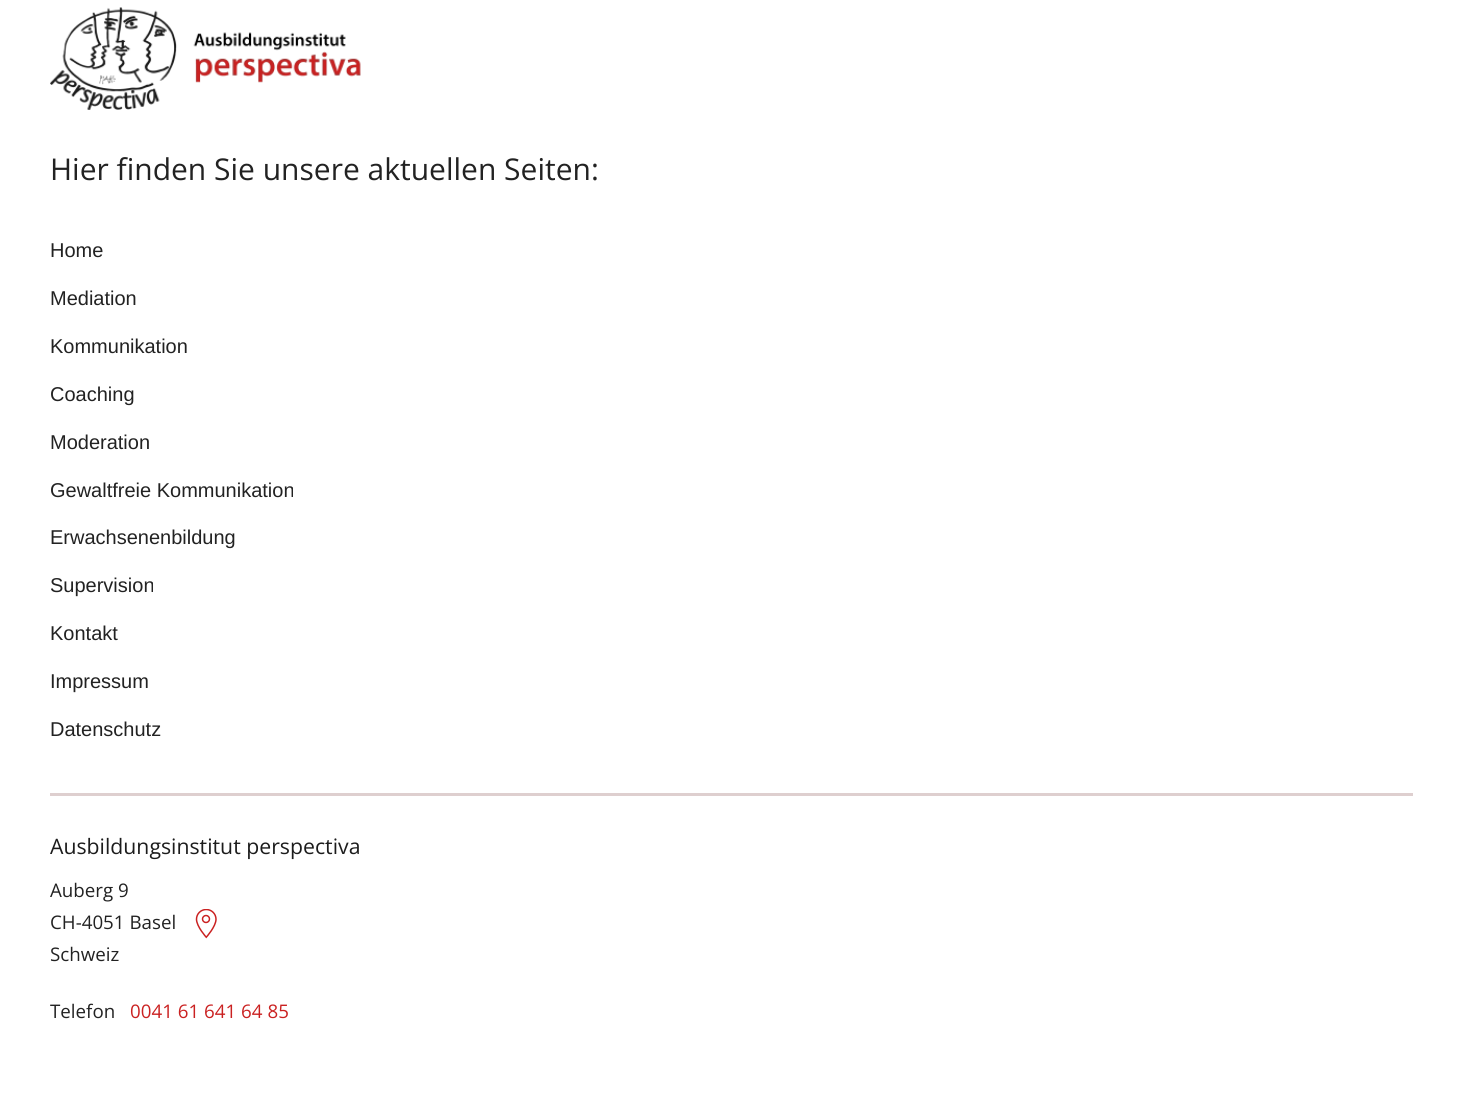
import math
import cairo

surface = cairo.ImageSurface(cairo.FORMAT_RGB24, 1462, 1114)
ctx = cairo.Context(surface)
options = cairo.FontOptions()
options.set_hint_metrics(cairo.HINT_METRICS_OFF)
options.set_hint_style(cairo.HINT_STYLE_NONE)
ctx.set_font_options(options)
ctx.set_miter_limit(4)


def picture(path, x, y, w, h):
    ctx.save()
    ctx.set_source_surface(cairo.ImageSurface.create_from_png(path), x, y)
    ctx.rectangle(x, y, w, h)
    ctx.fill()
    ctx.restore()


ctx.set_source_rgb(1, 1, 1)
ctx.paint()
picture("img1.png", 50, 7, 311, 103)
ctx.select_font_face("Open Sans")
ctx.set_font_size(30)
ctx.set_source_rgb(0.133, 0.133, 0.133)
ctx.move_to(50, 180)
ctx.show_text("Hier finden Sie unsere aktuellen Seiten:")
ctx.select_font_face("Liberation Sans")
ctx.set_font_size(20)
ctx.move_to(50, 257)
ctx.show_text("Home")
ctx.move_to(50, 305)
ctx.show_text("Mediation")
ctx.move_to(50, 353)
ctx.show_text("Kommunikation")
ctx.move_to(50, 401)
ctx.show_text("Coaching")
ctx.move_to(50, 449)
ctx.show_text("Moderation")
ctx.move_to(50, 497)
ctx.show_text("Gewaltfreie Kommunikation")
ctx.move_to(50, 544)
ctx.show_text("Erwachsenenbildung")
ctx.move_to(50, 592)
ctx.show_text("Supervision")
ctx.move_to(50, 640)
ctx.show_text("Kontakt")
ctx.move_to(50, 688)
ctx.show_text("Impressum")
ctx.move_to(50, 736)
ctx.show_text("Datenschutz")
ctx.set_source_rgb(0.871, 0.812, 0.812)
ctx.rectangle(50, 793, 1363, 3)
ctx.fill()
ctx.select_font_face("Open Sans")
ctx.set_font_size(21.25)
ctx.set_source_rgb(0.11, 0.11, 0.11)
ctx.move_to(50, 854)
ctx.show_text("Ausbildungsinstitut perspectiva")
ctx.set_font_size(18.75)
ctx.set_source_rgb(0.133, 0.133, 0.133)
ctx.move_to(50, 897)
ctx.show_text("Auberg 9")
ctx.move_to(50, 929)
ctx.show_text("CH-4051 Basel")
picture("img2.png", 195, 909, 22, 30)
ctx.move_to(50, 961)
ctx.show_text("Schweiz")
ctx.move_to(50, 1018)
ctx.show_text("Telefon")
ctx.set_source_rgb(0.792, 0.129, 0.129)
ctx.move_to(130, 1018)
ctx.show_text("0041 61 641 64 85")
surface.write_to_png("page.png")
